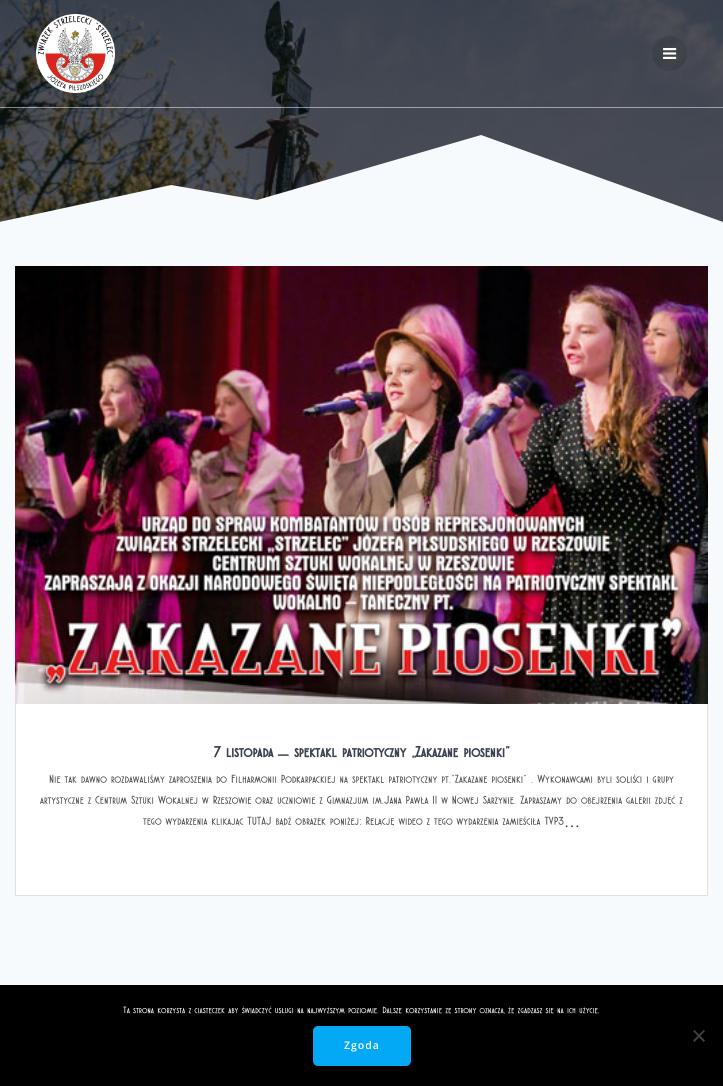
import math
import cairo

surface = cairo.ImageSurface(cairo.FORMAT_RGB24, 723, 1086)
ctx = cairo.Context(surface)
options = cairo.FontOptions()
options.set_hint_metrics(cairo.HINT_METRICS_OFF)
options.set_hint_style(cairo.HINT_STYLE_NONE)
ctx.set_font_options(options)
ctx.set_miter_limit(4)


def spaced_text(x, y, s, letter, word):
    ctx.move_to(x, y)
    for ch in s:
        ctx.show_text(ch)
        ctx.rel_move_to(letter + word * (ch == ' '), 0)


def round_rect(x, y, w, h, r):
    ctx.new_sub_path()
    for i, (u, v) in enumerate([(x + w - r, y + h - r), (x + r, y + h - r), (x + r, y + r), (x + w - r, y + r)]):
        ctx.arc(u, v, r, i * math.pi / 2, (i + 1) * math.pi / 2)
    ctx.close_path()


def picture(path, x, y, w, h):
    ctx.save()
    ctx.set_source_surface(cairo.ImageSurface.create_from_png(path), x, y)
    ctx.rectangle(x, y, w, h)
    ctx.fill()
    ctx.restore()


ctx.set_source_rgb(0.961, 0.98, 0.992)
ctx.paint()
picture("img3.png", 0, 0, 723, 222)
ctx.set_source_rgba(1, 1, 1, 0.5)
ctx.rectangle(0, 107, 723, 1)
ctx.fill()
picture("img1.png", 36, 14, 79, 79)
ctx.set_source_rgba(0, 0, 0, 0.1)
ctx.arc(669.5, 53.5, 17.5, 0, 2 * math.pi)
ctx.fill()
picture("img2.png", 663, 48, 14, 11)
ctx.set_source_rgb(0.961, 0.98, 0.992)
ctx.new_path()
ctx.move_to(171, 185)
ctx.line_to(257, 200)
ctx.line_to(481, 135)
ctx.line_to(723, 222)
ctx.line_to(723, 225)
ctx.line_to(-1, 225)
ctx.line_to(-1, 222)
ctx.fill()
ctx.set_source_rgb(1, 1, 1)
ctx.rectangle(16, 704, 691, 191)
ctx.fill()
ctx.rectangle(15.5, 266.5, 692, 629)
ctx.set_source_rgb(0.878, 0.882, 0.882)
ctx.set_line_width(1)
ctx.stroke()
picture("img4.png", 15, 266, 693, 438)
ctx.select_font_face("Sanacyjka", cairo.FONT_SLANT_NORMAL, cairo.FONT_WEIGHT_BOLD)
ctx.set_font_size(21)
ctx.set_source_rgb(0.235, 0.259, 0.31)
ctx.move_to(213, 760)
ctx.show_text("7 listopada")
ctx.select_font_face("Liberation Serif", cairo.FONT_SLANT_NORMAL, cairo.FONT_WEIGHT_BOLD)
ctx.move_to(278, 760)
ctx.show_text("–")
ctx.select_font_face("Sanacyjka", cairo.FONT_SLANT_NORMAL, cairo.FONT_WEIGHT_BOLD)
ctx.move_to(294, 760)
ctx.show_text("spektakl patriotyczny ,,Zakazane piosenki”")
ctx.select_font_face("Sanacyjka")
ctx.set_font_size(16)
ctx.set_source_rgb(0.302, 0.294, 0.282)
ctx.move_to(49, 785)
ctx.show_text("Nie tak dawno rozdawaliśmy zaproszenia do Filharmonii Podkarpackiej na spektakl patriotyczny pt.”Zakazane piosenki” . Wykonawcami byli soliści i grupy")
ctx.move_to(40, 806)
ctx.show_text("artystyczne z Centrum Sztuki Wokalnej w Rzeszowie oraz uczniowie z Gimnazjum im.Jana Pawła II w Nowej Sarzynie. Zapraszamy do obejrzenia galerii zdjęć z")
ctx.move_to(143, 827)
ctx.show_text("tego wydarzenia klikając TUTAJ bądź obrazek poniżej: Relację wideo z tego wydarzenia zamieściła TVP3")
ctx.select_font_face("Liberation Serif")
ctx.move_to(564, 827)
ctx.show_text("…")
ctx.set_source_rgb(0, 0, 0)
ctx.rectangle(0, 985, 723, 101)
ctx.fill()
ctx.select_font_face("Sanacyjka")
ctx.set_font_size(13)
ctx.set_source_rgb(1, 1, 1)
ctx.move_to(123, 1015)
ctx.show_text("Ta strona korzysta z ciasteczek aby świadczyć usługi na najwyższym poziomie. Dalsze korzystanie ze strony oznacza, że zgadzasz się na ich użycie.")
ctx.set_source_rgb(0.251, 0.251, 0.251)
ctx.new_path()
ctx.move_to(703.5, 1030)
ctx.line_to(705, 1031)
ctx.line_to(694.5, 1042)
ctx.line_to(693, 1040.5)
ctx.close_path()
ctx.fill()
ctx.new_path()
ctx.move_to(693, 1031)
ctx.line_to(694.5, 1030)
ctx.line_to(705, 1040.5)
ctx.line_to(703.5, 1042)
ctx.close_path()
ctx.fill()
ctx.set_source_rgb(0.012, 0.663, 0.957)
round_rect(314, 1027, 96, 38, 4)
ctx.fill_preserve()
ctx.set_line_width(2)
ctx.stroke()
ctx.select_font_face("Open Sans SemiBold")
ctx.set_font_size(10.5)
ctx.set_source_rgb(1, 1, 1)
spaced_text(344, 1049, "Zgoda", 1, 0)
surface.write_to_png("page.png")
